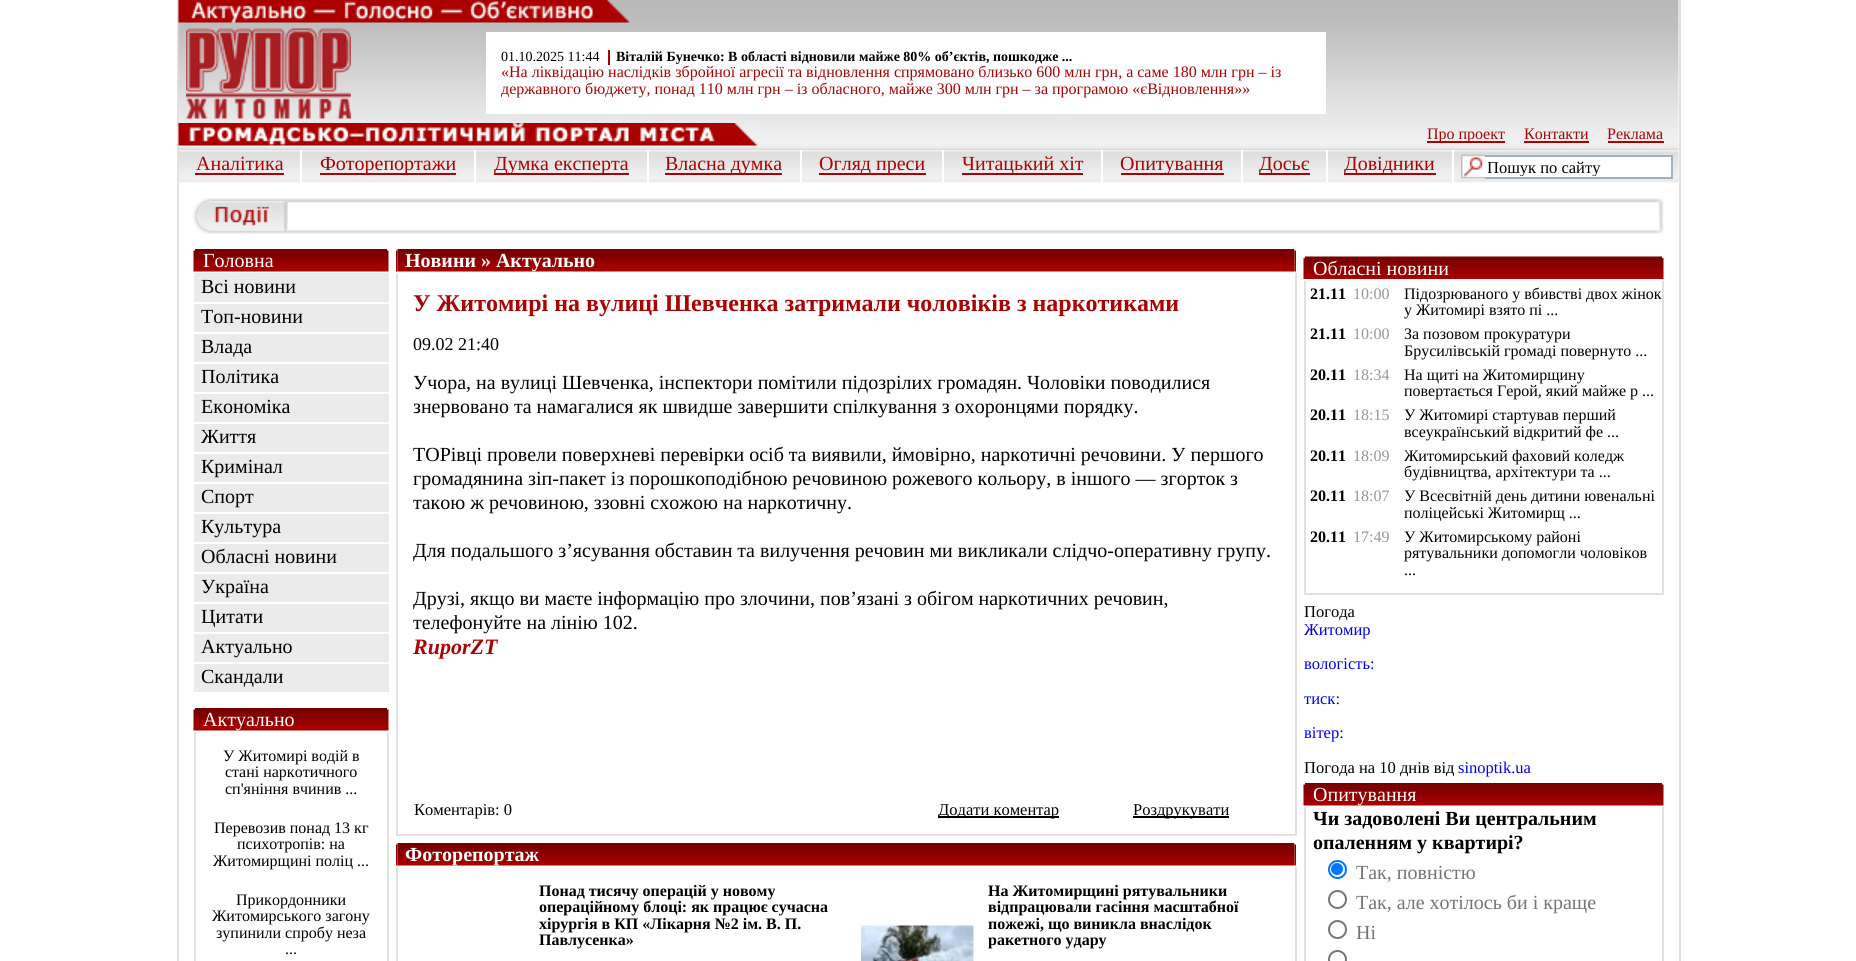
import math
import cairo

surface = cairo.ImageSurface(cairo.FORMAT_RGB24, 1856, 961)
ctx = cairo.Context(surface)
options = cairo.FontOptions()
options.set_hint_metrics(cairo.HINT_METRICS_OFF)
options.set_hint_style(cairo.HINT_STYLE_NONE)
ctx.set_font_options(options)
ctx.set_miter_limit(4)


def picture(path, x, y, w, h):
    ctx.save()
    ctx.set_source_surface(cairo.ImageSurface.create_from_png(path), x, y)
    ctx.rectangle(x, y, w, h)
    ctx.fill()
    ctx.restore()


ctx.set_source_rgb(1, 1, 1)
ctx.paint()
ctx.set_source_rgb(0.882, 0.882, 0.882)
ctx.rectangle(177, 0, 2, 961)
ctx.fill()
picture("img1.png", 178, 0, 1501, 150)
picture("img2.png", 178, 0, 452, 23)
picture("img3.png", 186, 28, 165, 91)
ctx.set_source_rgb(1, 1, 1)
ctx.rectangle(486, 32, 840, 82)
ctx.fill()
ctx.select_font_face("Liberation Serif")
ctx.set_font_size(14)
ctx.set_source_rgb(0, 0, 0)
ctx.move_to(501, 61)
ctx.show_text("01.10.2025 11:44")
ctx.set_source_rgb(0.663, 0.012, 0.012)
ctx.rectangle(608, 50, 2, 15)
ctx.fill()
ctx.select_font_face("Liberation Serif", cairo.FONT_SLANT_NORMAL, cairo.FONT_WEIGHT_BOLD)
ctx.set_source_rgb(0, 0, 0)
ctx.move_to(616, 61)
ctx.show_text("Віталій Бунечко: В області відновили майже 80% об’єктів, пошкодже ...")
ctx.select_font_face("Liberation Serif")
ctx.set_font_size(16)
ctx.set_source_rgb(0.663, 0.012, 0.012)
ctx.move_to(501, 77)
ctx.show_text("«На ліквідацію наслідків збройної агресії та відновлення спрямовано близько 600 млн грн, а саме 180 млн грн – із")
ctx.move_to(501, 94)
ctx.show_text("державного бюджету, понад 110 млн грн – із обласного, майже 300 млн грн – за програмою «єВідновлення»»")
picture("img4.png", 178, 123, 580, 23)
ctx.rectangle(1427, 141, 78, 2)
ctx.fill()
ctx.move_to(1427, 139)
ctx.show_text("Про проект")
ctx.move_to(1524, 139)
ctx.show_text("Контакти")
ctx.rectangle(1524, 141, 65, 2)
ctx.fill()
ctx.move_to(1607, 139)
ctx.show_text("Реклама")
ctx.rectangle(1608, 141, 56, 2)
ctx.fill()
picture("img5.png", 178, 150, 1501, 33)
ctx.set_source_rgb(1, 1, 1)
ctx.rectangle(300, 150, 2, 35)
ctx.fill()
ctx.set_font_size(20)
ctx.set_source_rgb(0.663, 0.012, 0.012)
ctx.move_to(196, 170)
ctx.show_text("Аналітика")
ctx.rectangle(195, 173, 89, 2)
ctx.fill()
ctx.set_source_rgb(1, 1, 1)
ctx.rectangle(474, 150, 2, 35)
ctx.fill()
ctx.set_source_rgb(0.663, 0.012, 0.012)
ctx.rectangle(320, 173, 136, 2)
ctx.fill()
ctx.move_to(320, 170)
ctx.show_text("Фоторепортажи")
ctx.set_source_rgb(1, 1, 1)
ctx.rectangle(647, 150, 2, 35)
ctx.fill()
ctx.set_source_rgb(0.663, 0.012, 0.012)
ctx.rectangle(494, 173, 135, 2)
ctx.fill()
ctx.move_to(494, 170)
ctx.show_text("Думка експерта")
ctx.set_source_rgb(1, 1, 1)
ctx.rectangle(800, 150, 2, 35)
ctx.fill()
ctx.set_source_rgb(0.663, 0.012, 0.012)
ctx.rectangle(665, 173, 117, 2)
ctx.fill()
ctx.move_to(665, 170)
ctx.show_text("Власна думка")
ctx.set_source_rgb(1, 1, 1)
ctx.rectangle(942, 150, 2, 35)
ctx.fill()
ctx.set_source_rgb(0.663, 0.012, 0.012)
ctx.rectangle(819, 173, 107, 2)
ctx.fill()
ctx.move_to(819, 170)
ctx.show_text("Огляд преси")
ctx.set_source_rgb(1, 1, 1)
ctx.rectangle(1101, 150, 2, 35)
ctx.fill()
ctx.set_source_rgb(0.663, 0.012, 0.012)
ctx.rectangle(962, 173, 121, 2)
ctx.fill()
ctx.move_to(962, 170)
ctx.show_text("Читацький хіт")
ctx.set_source_rgb(1, 1, 1)
ctx.rectangle(1241, 150, 2, 35)
ctx.fill()
ctx.set_source_rgb(0.663, 0.012, 0.012)
ctx.rectangle(1121, 173, 103, 2)
ctx.fill()
ctx.move_to(1120, 170)
ctx.show_text("Опитування")
ctx.set_source_rgb(1, 1, 1)
ctx.rectangle(1326, 150, 2, 35)
ctx.fill()
ctx.set_source_rgb(0.663, 0.012, 0.012)
ctx.rectangle(1259, 173, 51, 2)
ctx.fill()
ctx.move_to(1259, 170)
ctx.show_text("Досьє")
ctx.set_source_rgb(1, 1, 1)
ctx.rectangle(1452, 150, 2, 35)
ctx.fill()
ctx.set_source_rgb(0.663, 0.012, 0.012)
ctx.rectangle(1344, 173, 92, 2)
ctx.fill()
ctx.move_to(1344, 170)
ctx.show_text("Довідники")
ctx.set_source_rgb(1, 1, 1)
ctx.rectangle(1461, 157, 210, 22)
ctx.fill()
picture("img6.png", 1461, 154, 24, 25)
ctx.set_source_rgb(0.631, 0.694, 0.745)
ctx.rectangle(1485, 155, 188, 2)
ctx.fill()
ctx.rectangle(1671, 155, 2, 24)
ctx.fill()
ctx.rectangle(1485, 177, 188, 2)
ctx.fill()
ctx.save()
ctx.rectangle(1488, 158, 180, 18)
ctx.clip()
ctx.set_font_size(16.5)
ctx.set_source_rgb(0, 0, 0)
ctx.move_to(1487, 173)
ctx.show_text("Пошук по сайту")
ctx.restore()
picture("img7.png", 193, 198, 95, 36)
picture("img8.png", 288, 198, 1370, 36)
picture("img9.png", 1657, 198, 7, 36)
picture("img10.png", 193, 250, 2, 22)
picture("img11.png", 195, 249, 192, 23)
ctx.set_source_rgb(1, 1, 1)
ctx.move_to(203, 267)
ctx.show_text("Головна")
picture("img12.png", 387, 250, 2, 22)
ctx.set_source_rgb(0.918, 0.918, 0.918)
ctx.rectangle(194, 273, 195, 29)
ctx.fill()
ctx.set_source_rgb(0, 0, 0)
ctx.move_to(201, 293)
ctx.show_text("Всі новини")
ctx.set_source_rgb(0.918, 0.918, 0.918)
ctx.rectangle(194, 304, 195, 28)
ctx.fill()
ctx.set_source_rgb(0, 0, 0)
ctx.move_to(201, 323)
ctx.show_text("Топ-новини")
ctx.set_source_rgb(0.918, 0.918, 0.918)
ctx.rectangle(194, 334, 195, 28)
ctx.fill()
ctx.set_source_rgb(0, 0, 0)
ctx.move_to(201, 353)
ctx.show_text("Влада")
ctx.set_source_rgb(0.918, 0.918, 0.918)
ctx.rectangle(194, 364, 195, 28)
ctx.fill()
ctx.set_source_rgb(0, 0, 0)
ctx.move_to(201, 383)
ctx.show_text("Політика")
ctx.set_source_rgb(0.918, 0.918, 0.918)
ctx.rectangle(194, 394, 195, 28)
ctx.fill()
ctx.set_source_rgb(0, 0, 0)
ctx.move_to(201, 413)
ctx.show_text("Економіка")
ctx.set_source_rgb(0.918, 0.918, 0.918)
ctx.rectangle(194, 424, 195, 28)
ctx.fill()
ctx.set_source_rgb(0, 0, 0)
ctx.move_to(201, 443)
ctx.show_text("Життя")
ctx.set_source_rgb(0.918, 0.918, 0.918)
ctx.rectangle(194, 454, 195, 28)
ctx.fill()
ctx.set_source_rgb(0, 0, 0)
ctx.move_to(201, 473)
ctx.show_text("Кримінал")
ctx.set_source_rgb(0.918, 0.918, 0.918)
ctx.rectangle(194, 484, 195, 28)
ctx.fill()
ctx.set_source_rgb(0, 0, 0)
ctx.move_to(201, 503)
ctx.show_text("Спорт")
ctx.set_source_rgb(0.918, 0.918, 0.918)
ctx.rectangle(194, 514, 195, 28)
ctx.fill()
ctx.set_source_rgb(0, 0, 0)
ctx.move_to(201, 533)
ctx.show_text("Культура")
ctx.set_source_rgb(0.918, 0.918, 0.918)
ctx.rectangle(194, 544, 195, 28)
ctx.fill()
ctx.set_source_rgb(0, 0, 0)
ctx.move_to(201, 563)
ctx.show_text("Обласні новини")
ctx.set_source_rgb(0.918, 0.918, 0.918)
ctx.rectangle(194, 574, 195, 28)
ctx.fill()
ctx.set_source_rgb(0, 0, 0)
ctx.move_to(201, 593)
ctx.show_text("Україна")
ctx.set_source_rgb(0.918, 0.918, 0.918)
ctx.rectangle(194, 604, 195, 28)
ctx.fill()
ctx.set_source_rgb(0, 0, 0)
ctx.move_to(201, 623)
ctx.show_text("Цитати")
ctx.set_source_rgb(0.918, 0.918, 0.918)
ctx.rectangle(194, 634, 195, 28)
ctx.fill()
ctx.set_source_rgb(0, 0, 0)
ctx.move_to(201, 653)
ctx.show_text("Актуально")
ctx.set_source_rgb(0.918, 0.918, 0.918)
ctx.rectangle(194, 664, 195, 28)
ctx.fill()
ctx.set_source_rgb(0, 0, 0)
ctx.move_to(201, 683)
ctx.show_text("Скандали")
picture("img10.png", 193, 709, 2, 22)
picture("img11.png", 195, 708, 192, 23)
ctx.set_source_rgb(1, 1, 1)
ctx.move_to(203, 726)
ctx.show_text("Актуально")
picture("img12.png", 387, 709, 2, 22)
ctx.set_source_rgb(0.882, 0.882, 0.882)
ctx.rectangle(194, 732, 2, 229)
ctx.fill()
ctx.set_font_size(16)
ctx.set_source_rgb(0, 0, 0)
ctx.move_to(223, 761)
ctx.show_text("У Житомирі водій в")
ctx.move_to(225, 777)
ctx.show_text("стані наркотичного")
ctx.move_to(225, 794)
ctx.show_text("сп'яніння вчинив ...")
ctx.move_to(214, 833)
ctx.show_text("Перевозив понад 13 кг")
ctx.move_to(237, 849)
ctx.show_text("психотропів: на")
ctx.move_to(213, 866)
ctx.show_text("Житомирщині поліц ...")
ctx.move_to(236, 905)
ctx.show_text("Прикордонники")
ctx.move_to(212, 921)
ctx.show_text("Житомирського загону")
ctx.move_to(216, 938)
ctx.show_text("зупинили спробу неза")
ctx.move_to(285, 954)
ctx.show_text("...")
ctx.set_source_rgb(0.882, 0.882, 0.882)
ctx.rectangle(387, 732, 2, 229)
ctx.fill()
picture("img12.png", 396, 250, 2, 22)
picture("img13.png", 397, 249, 898, 23)
ctx.select_font_face("Liberation Serif", cairo.FONT_SLANT_NORMAL, cairo.FONT_WEIGHT_BOLD)
ctx.set_font_size(20)
ctx.set_source_rgb(1, 1, 1)
ctx.move_to(405, 267)
ctx.show_text("Новини » Актуально")
picture("img14.png", 1294, 249, 2, 23)
ctx.set_source_rgb(0.882, 0.882, 0.882)
ctx.rectangle(396, 273, 2, 563)
ctx.fill()
ctx.set_font_size(24)
ctx.set_source_rgb(0.663, 0.012, 0.012)
ctx.move_to(413, 311)
ctx.show_text("У Житомирі на вулиці Шевченка затримали чоловіків з наркотиками")
ctx.select_font_face("Liberation Serif")
ctx.set_font_size(18)
ctx.set_source_rgb(0, 0, 0)
ctx.move_to(413, 350)
ctx.show_text("09.02 21:40")
ctx.set_font_size(20)
ctx.move_to(413, 389)
ctx.show_text("Учора, на вулиці Шевченка, інспектори помітили підозрілих громадян. Чоловіки поводилися")
ctx.move_to(413, 413)
ctx.show_text("знервовано та намагалися як швидше завершити спілкування з охоронцями порядку.")
ctx.move_to(413, 461)
ctx.show_text("ТОРівці провели поверхневі перевірки осіб та виявили, ймовірно, наркотичні речовини. У першого")
ctx.move_to(413, 485)
ctx.show_text("громадянина зіп-пакет із порошкоподібною речовиною рожевого кольору, в іншого — згорток з")
ctx.move_to(413, 509)
ctx.show_text("такою ж речовиною, ззовні схожою на наркотичну.")
ctx.move_to(413, 557)
ctx.show_text("Для подальшого з’ясування обставин та вилучення речовин ми викликали слідчо-оперативну групу.")
ctx.move_to(413, 605)
ctx.show_text("Друзі, якщо ви маєте інформацію про злочини, пов’язані з обігом наркотичних речовин,")
ctx.move_to(413, 629)
ctx.show_text("телефонуйте на лінію 102.")
ctx.select_font_face("Liberation Serif", cairo.FONT_SLANT_ITALIC, cairo.FONT_WEIGHT_BOLD)
ctx.set_font_size(22)
ctx.set_source_rgb(0.663, 0.012, 0.012)
ctx.move_to(413, 654)
ctx.show_text("RuporZT")
ctx.select_font_face("Liberation Serif")
ctx.set_font_size(16.5)
ctx.set_source_rgb(0, 0, 0)
ctx.move_to(414, 815)
ctx.show_text("Коментарів: 0")
ctx.rectangle(938, 816, 121, 2)
ctx.fill()
ctx.move_to(938, 815)
ctx.show_text("Додати коментар")
ctx.rectangle(1133, 816, 96, 2)
ctx.fill()
ctx.move_to(1133, 815)
ctx.show_text("Роздрукувати")
ctx.set_source_rgb(0.882, 0.882, 0.882)
ctx.rectangle(1295, 273, 2, 561)
ctx.fill()
ctx.rectangle(398, 834, 899, 2)
ctx.fill()
picture("img12.png", 396, 844, 2, 22)
picture("img13.png", 397, 843, 898, 23)
ctx.select_font_face("Liberation Serif", cairo.FONT_SLANT_NORMAL, cairo.FONT_WEIGHT_BOLD)
ctx.set_font_size(20)
ctx.set_source_rgb(1, 1, 1)
ctx.move_to(405, 861)
ctx.show_text("Фоторепортаж")
picture("img14.png", 1294, 843, 2, 23)
ctx.set_source_rgb(0.882, 0.882, 0.882)
ctx.rectangle(396, 867, 2, 94)
ctx.fill()
ctx.set_font_size(16)
ctx.set_source_rgb(0, 0, 0)
ctx.move_to(539, 896)
ctx.show_text("Понад тисячу операцій у новому")
ctx.move_to(539, 912)
ctx.show_text("операційному блоці: як працює сучасна")
ctx.move_to(539, 929)
ctx.show_text("хірургія в КП «Лікарня №2 ім. В. П.")
ctx.move_to(539, 945)
ctx.show_text("Павлусенка»")
picture("img15.png", 861, 925, 113, 36)
ctx.move_to(988, 896)
ctx.show_text("На Житомирщині рятувальники")
ctx.move_to(988, 912)
ctx.show_text("відпрацювали гасіння масштабної")
ctx.move_to(988, 929)
ctx.show_text("пожежі, що виникла внаслідок")
ctx.move_to(988, 945)
ctx.show_text("ракетного удару")
ctx.set_source_rgb(0.882, 0.882, 0.882)
ctx.rectangle(1295, 867, 2, 94)
ctx.fill()
picture("img16.png", 1303, 257, 2, 22)
picture("img17.png", 1305, 256, 357, 23)
ctx.select_font_face("Liberation Serif")
ctx.set_font_size(20)
ctx.set_source_rgb(1, 1, 1)
ctx.move_to(1313, 275)
ctx.show_text("Обласні новини")
picture("img18.png", 1662, 257, 2, 22)
ctx.set_source_rgb(0.882, 0.882, 0.882)
ctx.rectangle(1304, 281, 2, 314)
ctx.fill()
ctx.rectangle(1662, 281, 2, 312)
ctx.fill()
ctx.select_font_face("Liberation Serif", cairo.FONT_SLANT_NORMAL, cairo.FONT_WEIGHT_BOLD)
ctx.set_font_size(16)
ctx.set_source_rgb(0, 0, 0)
ctx.move_to(1310, 299)
ctx.show_text("21.11")
ctx.select_font_face("Liberation Serif")
ctx.set_source_rgb(0.592, 0.592, 0.592)
ctx.move_to(1353, 299)
ctx.show_text("10:00")
ctx.set_source_rgb(0, 0, 0)
ctx.move_to(1404, 299)
ctx.show_text("Підозрюваного у вбивстві двох жінок")
ctx.move_to(1404, 315)
ctx.show_text("у Житомирі взято пі ...")
ctx.select_font_face("Liberation Serif", cairo.FONT_SLANT_NORMAL, cairo.FONT_WEIGHT_BOLD)
ctx.move_to(1310, 339)
ctx.show_text("21.11")
ctx.select_font_face("Liberation Serif")
ctx.set_source_rgb(0.592, 0.592, 0.592)
ctx.move_to(1353, 339)
ctx.show_text("10:00")
ctx.set_source_rgb(0, 0, 0)
ctx.move_to(1404, 339)
ctx.show_text("За позовом прокуратури")
ctx.move_to(1404, 356)
ctx.show_text("Брусилівській громаді повернуто ...")
ctx.select_font_face("Liberation Serif", cairo.FONT_SLANT_NORMAL, cairo.FONT_WEIGHT_BOLD)
ctx.move_to(1310, 380)
ctx.show_text("20.11")
ctx.select_font_face("Liberation Serif")
ctx.set_source_rgb(0.592, 0.592, 0.592)
ctx.move_to(1353, 380)
ctx.show_text("18:34")
ctx.set_source_rgb(0, 0, 0)
ctx.move_to(1404, 380)
ctx.show_text("На щиті на Житомирщину")
ctx.move_to(1404, 396)
ctx.show_text("повертається Герой, який майже р ...")
ctx.select_font_face("Liberation Serif", cairo.FONT_SLANT_NORMAL, cairo.FONT_WEIGHT_BOLD)
ctx.move_to(1310, 420)
ctx.show_text("20.11")
ctx.select_font_face("Liberation Serif")
ctx.set_source_rgb(0.592, 0.592, 0.592)
ctx.move_to(1353, 420)
ctx.show_text("18:15")
ctx.set_source_rgb(0, 0, 0)
ctx.move_to(1404, 420)
ctx.show_text("У Житомирі стартував перший")
ctx.move_to(1404, 437)
ctx.show_text("всеукраїнський відкритий фе ...")
ctx.select_font_face("Liberation Serif", cairo.FONT_SLANT_NORMAL, cairo.FONT_WEIGHT_BOLD)
ctx.move_to(1310, 461)
ctx.show_text("20.11")
ctx.select_font_face("Liberation Serif")
ctx.set_source_rgb(0.592, 0.592, 0.592)
ctx.move_to(1353, 461)
ctx.show_text("18:09")
ctx.set_source_rgb(0, 0, 0)
ctx.move_to(1404, 461)
ctx.show_text("Житомирський фаховий коледж")
ctx.move_to(1404, 477)
ctx.show_text("будівництва, архітектури та ...")
ctx.select_font_face("Liberation Serif", cairo.FONT_SLANT_NORMAL, cairo.FONT_WEIGHT_BOLD)
ctx.move_to(1310, 501)
ctx.show_text("20.11")
ctx.select_font_face("Liberation Serif")
ctx.set_source_rgb(0.592, 0.592, 0.592)
ctx.move_to(1353, 501)
ctx.show_text("18:07")
ctx.set_source_rgb(0, 0, 0)
ctx.move_to(1404, 501)
ctx.show_text("У Всесвітній день дитини ювенальні")
ctx.move_to(1404, 518)
ctx.show_text("поліцейські Житомирщ ...")
ctx.select_font_face("Liberation Serif", cairo.FONT_SLANT_NORMAL, cairo.FONT_WEIGHT_BOLD)
ctx.move_to(1310, 542)
ctx.show_text("20.11")
ctx.select_font_face("Liberation Serif")
ctx.set_source_rgb(0.592, 0.592, 0.592)
ctx.move_to(1353, 542)
ctx.show_text("17:49")
ctx.set_source_rgb(0, 0, 0)
ctx.move_to(1404, 542)
ctx.show_text("У Житомирському районі")
ctx.move_to(1404, 558)
ctx.show_text("рятувальники допомогли чоловіков")
ctx.move_to(1404, 575)
ctx.show_text("...")
ctx.set_source_rgb(0.882, 0.882, 0.882)
ctx.rectangle(1305, 593, 359, 2)
ctx.fill()
ctx.set_font_size(16.5)
ctx.set_source_rgb(0, 0, 0)
ctx.move_to(1304, 617)
ctx.show_text("Погода")
ctx.set_source_rgb(0, 0, 0.933)
ctx.move_to(1304, 635)
ctx.show_text("Житомир")
ctx.move_to(1304, 669)
ctx.show_text("вологість:")
ctx.move_to(1304, 704)
ctx.show_text("тиск:")
ctx.move_to(1304, 738)
ctx.show_text("вітер:")
ctx.set_source_rgb(0, 0, 0)
ctx.move_to(1304, 773)
ctx.show_text("Погода на 10 днів від")
ctx.set_source_rgb(0, 0, 0.933)
ctx.move_to(1458, 773)
ctx.show_text("sinoptik.ua")
picture("img10.png", 1303, 784, 2, 22)
picture("img19.png", 1305, 783, 357, 23)
ctx.set_font_size(20)
ctx.set_source_rgb(1, 1, 1)
ctx.move_to(1313, 801)
ctx.show_text("Опитування")
picture("img12.png", 1662, 784, 2, 22)
ctx.set_source_rgb(0.882, 0.882, 0.882)
ctx.rectangle(1304, 807, 2, 154)
ctx.fill()
ctx.select_font_face("Liberation Serif", cairo.FONT_SLANT_NORMAL, cairo.FONT_WEIGHT_BOLD)
ctx.set_source_rgb(0, 0, 0)
ctx.move_to(1313, 825)
ctx.show_text("Чи задоволені Ви центральним")
ctx.move_to(1313, 849)
ctx.show_text("опаленням у квартирі?")
ctx.new_path()
ctx.arc(1337.5, 869.5, 8.5, 0, 2 * math.pi)
ctx.set_source_rgb(0, 0.459, 1)
ctx.stroke()
ctx.arc(1337, 869, 6, 0, 2 * math.pi)
ctx.fill()
ctx.select_font_face("Liberation Serif")
ctx.set_source_rgb(0.459, 0.459, 0.459)
ctx.move_to(1356, 879)
ctx.show_text("Так, повністю")
ctx.new_path()
ctx.arc(1337.5, 899.5, 8.5, 0, 2 * math.pi)
ctx.set_source_rgb(0.463, 0.463, 0.463)
ctx.stroke()
ctx.set_source_rgb(0.459, 0.459, 0.459)
ctx.move_to(1356, 909)
ctx.show_text("Так, але хотілось би і краще")
ctx.new_path()
ctx.arc(1337.5, 929.5, 8.5, 0, 2 * math.pi)
ctx.set_source_rgb(0.463, 0.463, 0.463)
ctx.stroke()
ctx.set_source_rgb(0.459, 0.459, 0.459)
ctx.move_to(1356, 939)
ctx.show_text("Ні")
ctx.new_path()
ctx.arc(1337.5, 959.5, 8.5, 0, 2 * math.pi)
ctx.set_source_rgb(0.463, 0.463, 0.463)
ctx.stroke()
ctx.set_source_rgb(0.882, 0.882, 0.882)
ctx.rectangle(1662, 807, 2, 154)
ctx.fill()
ctx.rectangle(1679, 0, 2, 961)
ctx.fill()
surface.write_to_png("page.png")
